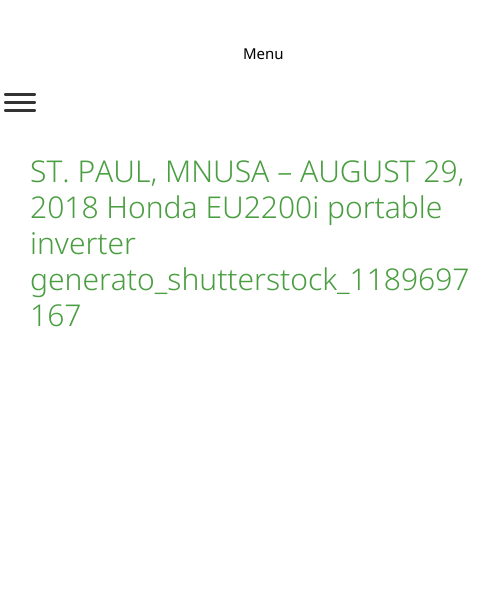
import math
import cairo

surface = cairo.ImageSurface(cairo.FORMAT_RGB24, 500, 593)
ctx = cairo.Context(surface)
options = cairo.FontOptions()
options.set_hint_metrics(cairo.HINT_METRICS_OFF)
options.set_hint_style(cairo.HINT_STYLE_NONE)
ctx.set_font_options(options)
ctx.set_miter_limit(4)


def round_rect(x, y, w, h, r):
    ctx.new_sub_path()
    for i, (u, v) in enumerate([(x + w - r, y + h - r), (x + r, y + h - r), (x + r, y + r), (x + w - r, y + r)]):
        ctx.arc(u, v, r, i * math.pi / 2, (i + 1) * math.pi / 2)
    ctx.close_path()


ctx.set_source_rgb(1, 1, 1)
ctx.paint()
ctx.select_font_face("Noto Sans")
ctx.set_font_size(15)
ctx.set_source_rgb(0, 0, 0)
ctx.move_to(243, 59)
ctx.show_text("Menu")
ctx.set_source_rgb(0.2, 0.2, 0.2)
round_rect(4, 93, 32, 3, 1.5)
ctx.fill()
round_rect(4, 101, 32, 3, 1.5)
ctx.fill()
round_rect(4, 109, 32, 3, 1.5)
ctx.fill()
ctx.select_font_face("Noto Sans Light")
ctx.set_font_size(30)
ctx.set_source_rgb(0.29, 0.62, 0.255)
ctx.move_to(30, 182)
ctx.show_text("ST. PAUL, MNUSA – AUGUST 29,")
ctx.move_to(30, 218)
ctx.show_text("2018 Honda EU2200i portable")
ctx.move_to(30, 254)
ctx.show_text("inverter")
ctx.move_to(30, 290)
ctx.show_text("generato_shutterstock_1189697")
ctx.move_to(30, 326)
ctx.show_text("167")
surface.write_to_png("page.png")
